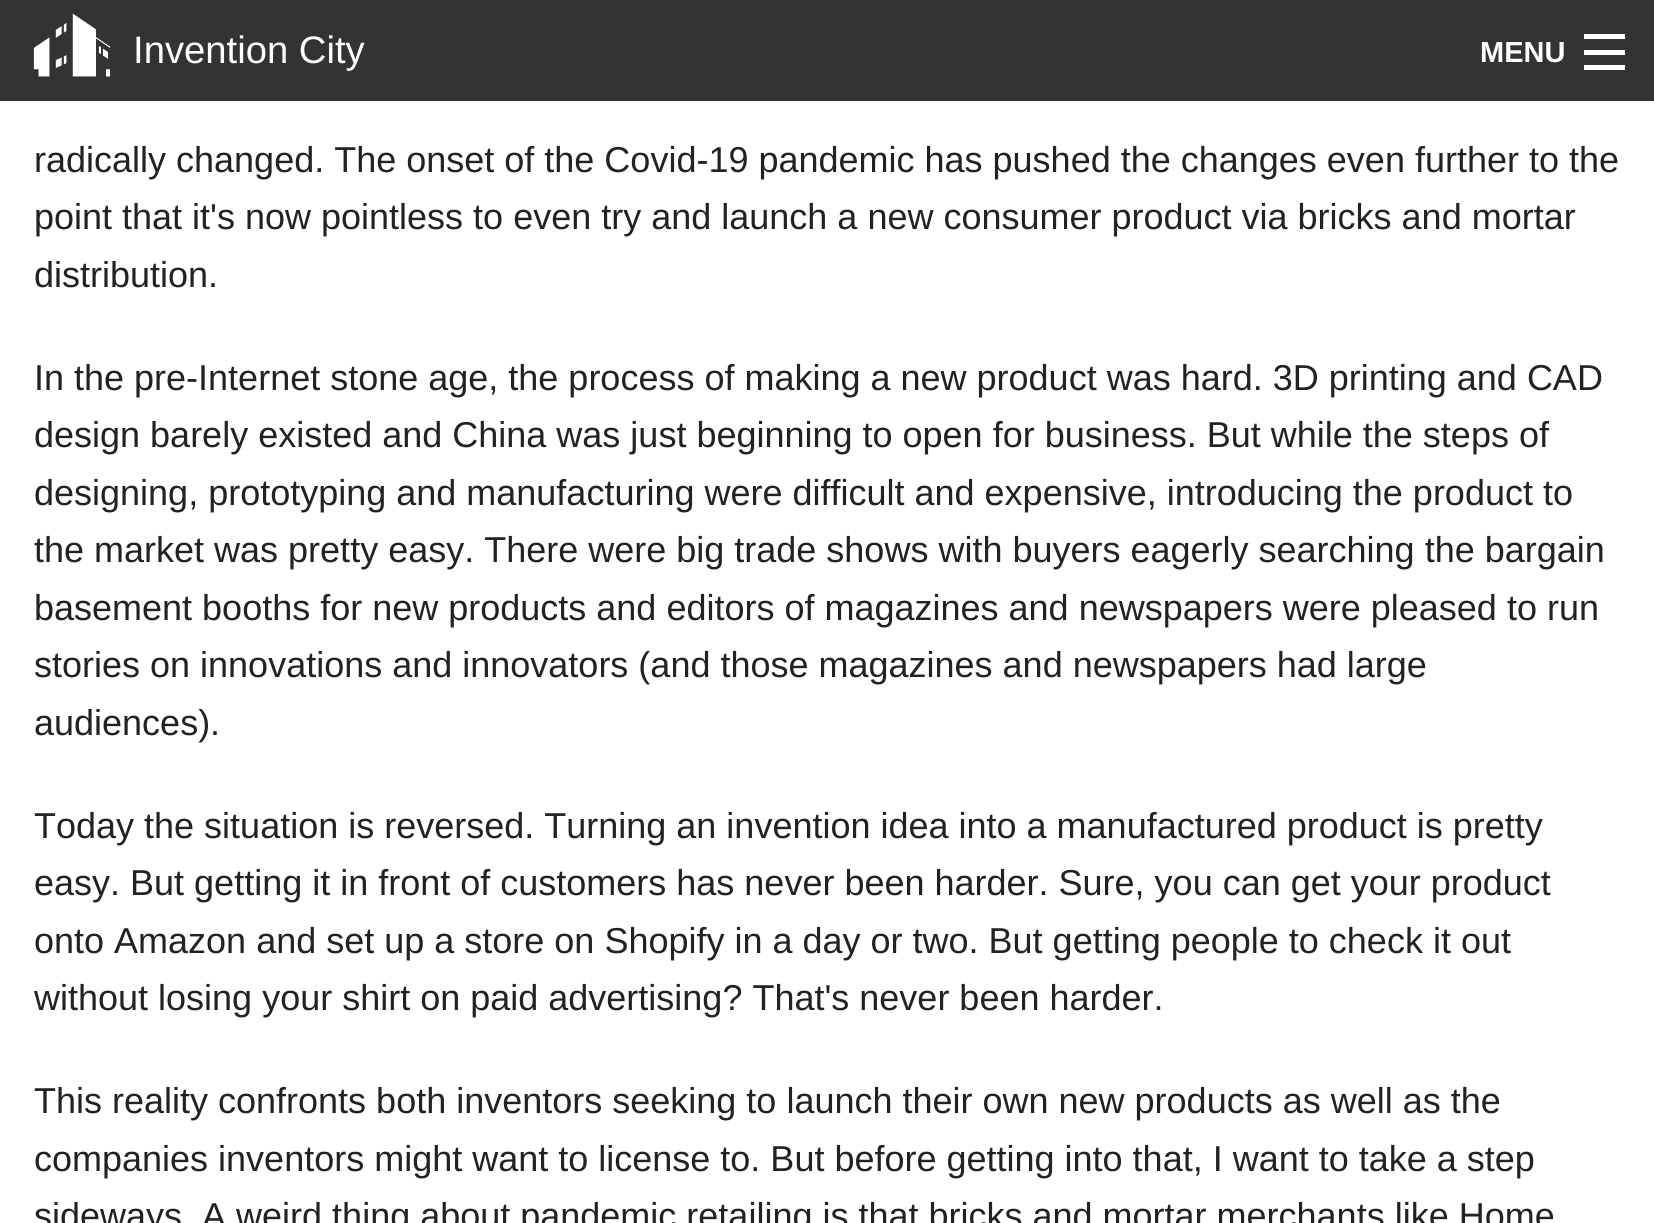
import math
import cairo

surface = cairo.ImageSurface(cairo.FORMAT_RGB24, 1654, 1223)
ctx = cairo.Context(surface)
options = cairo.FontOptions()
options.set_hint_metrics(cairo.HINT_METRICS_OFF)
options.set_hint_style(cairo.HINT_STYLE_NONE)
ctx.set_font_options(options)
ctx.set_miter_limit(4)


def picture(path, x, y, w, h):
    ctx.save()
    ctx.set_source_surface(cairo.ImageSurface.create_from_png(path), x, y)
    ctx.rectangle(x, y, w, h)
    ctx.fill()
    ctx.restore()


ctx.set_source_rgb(1, 1, 1)
ctx.paint()
ctx.set_source_rgb(0.2, 0.2, 0.2)
ctx.rectangle(0, 0, 1654, 101)
ctx.fill()
picture("img1.png", 33, 13, 78, 64)
ctx.select_font_face("Liberation Sans")
ctx.set_font_size(38.25)
ctx.set_source_rgb(1, 1, 1)
ctx.move_to(133, 63)
ctx.show_text("Invention City")
ctx.select_font_face("Liberation Sans", cairo.FONT_SLANT_NORMAL, cairo.FONT_WEIGHT_BOLD)
ctx.set_font_size(29)
ctx.move_to(1480, 62)
ctx.show_text("MENU")
ctx.rectangle(1584, 65, 41, 5)
ctx.fill()
ctx.rectangle(1584, 50, 41, 5)
ctx.fill()
ctx.rectangle(1584, 34, 41, 5)
ctx.fill()
ctx.select_font_face("Liberation Sans")
ctx.set_font_size(36)
ctx.set_source_rgb(0.133, 0.133, 0.133)
ctx.move_to(34, 172)
ctx.show_text("radically changed. The onset of the Covid-19 pandemic has pushed the changes even further to the")
ctx.move_to(34, 229)
ctx.show_text("point that it's now pointless to even try and launch a new consumer product via bricks and mortar")
ctx.move_to(34, 287)
ctx.show_text("distribution.")
ctx.move_to(34, 390)
ctx.show_text("In the pre-Internet stone age, the process of making a new product was hard. 3D printing and CAD")
ctx.move_to(34, 447)
ctx.show_text("design barely existed and China was just beginning to open for business. But while the steps of")
ctx.move_to(34, 505)
ctx.show_text("designing, prototyping and manufacturing were difficult and expensive, introducing the product to")
ctx.move_to(34, 562)
ctx.show_text("the market was pretty easy. There were big trade shows with buyers eagerly searching the bargain")
ctx.move_to(34, 620)
ctx.show_text("basement booths for new products and editors of magazines and newspapers were pleased to run")
ctx.move_to(34, 677)
ctx.show_text("stories on innovations and innovators (and those magazines and newspapers had large")
ctx.move_to(34, 735)
ctx.show_text("audiences).")
ctx.move_to(34, 838)
ctx.show_text("Today the situation is reversed. Turning an invention idea into a manufactured product is pretty")
ctx.move_to(34, 895)
ctx.show_text("easy. But getting it in front of customers has never been harder. Sure, you can get your product")
ctx.move_to(34, 953)
ctx.show_text("onto Amazon and set up a store on Shopify in a day or two. But getting people to check it out")
ctx.move_to(34, 1010)
ctx.show_text("without losing your shirt on paid advertising? That's never been harder.")
ctx.move_to(34, 1113)
ctx.show_text("This reality confronts both inventors seeking to launch their own new products as well as the")
ctx.move_to(34, 1171)
ctx.show_text("companies inventors might want to license to. But before getting into that, I want to take a step")
ctx.move_to(34, 1228)
ctx.show_text("sideways. A weird thing about pandemic retailing is that bricks and mortar merchants like Home")
surface.write_to_png("page.png")
